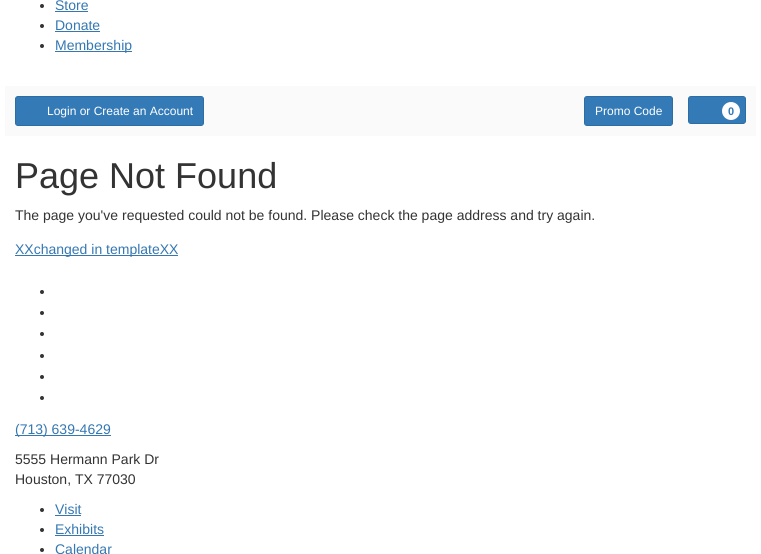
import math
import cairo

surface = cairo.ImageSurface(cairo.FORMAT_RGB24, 761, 554)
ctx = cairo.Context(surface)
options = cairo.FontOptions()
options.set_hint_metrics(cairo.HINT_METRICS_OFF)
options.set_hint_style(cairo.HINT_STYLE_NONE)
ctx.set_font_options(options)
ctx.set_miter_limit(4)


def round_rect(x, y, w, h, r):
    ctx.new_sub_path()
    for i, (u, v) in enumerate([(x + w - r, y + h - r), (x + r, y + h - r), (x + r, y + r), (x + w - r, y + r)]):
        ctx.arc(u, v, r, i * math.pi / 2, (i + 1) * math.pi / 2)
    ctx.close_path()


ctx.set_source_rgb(1, 1, 1)
ctx.paint()
ctx.set_source_rgb(0.2, 0.2, 0.2)
ctx.arc(42, 6, 2, 0, 2 * math.pi)
ctx.fill()
ctx.select_font_face("Liberation Sans")
ctx.set_font_size(14)
ctx.set_source_rgb(0.204, 0.467, 0.694)
ctx.move_to(55, 10)
ctx.show_text("Store")
ctx.rectangle(55, 11, 33, 1)
ctx.fill()
ctx.set_source_rgb(0.2, 0.2, 0.2)
ctx.arc(42, 26, 2, 0, 2 * math.pi)
ctx.fill()
ctx.set_source_rgb(0.204, 0.467, 0.694)
ctx.move_to(55, 30)
ctx.show_text("Donate")
ctx.rectangle(55, 31, 45, 1)
ctx.fill()
ctx.set_source_rgb(0.2, 0.2, 0.2)
ctx.arc(42, 46, 2, 0, 2 * math.pi)
ctx.fill()
ctx.set_source_rgb(0.204, 0.467, 0.694)
ctx.rectangle(55, 51, 77, 1)
ctx.fill()
ctx.move_to(55, 50)
ctx.show_text("Membership")
ctx.set_source_rgb(0.98, 0.98, 0.98)
ctx.rectangle(5, 86, 751, 50)
ctx.fill()
ctx.set_source_rgb(0.2, 0.478, 0.718)
round_rect(15.5, 96.5, 188, 29, 2.5)
ctx.fill_preserve()
ctx.set_source_rgb(0.176, 0.427, 0.639)
ctx.set_line_width(1)
ctx.stroke()
ctx.set_font_size(12)
ctx.set_source_rgb(1, 1, 1)
ctx.move_to(47, 115)
ctx.show_text("Login or Create an Account")
ctx.set_source_rgb(0.2, 0.478, 0.718)
round_rect(584.5, 96.5, 88, 29, 2.5)
ctx.fill_preserve()
ctx.set_source_rgb(0.176, 0.427, 0.639)
ctx.stroke()
ctx.set_source_rgb(1, 1, 1)
ctx.move_to(595, 115)
ctx.show_text("Promo Code")
ctx.set_source_rgb(0.2, 0.478, 0.718)
round_rect(688.5, 96.5, 57, 27, 2.5)
ctx.fill_preserve()
ctx.set_source_rgb(0.176, 0.427, 0.639)
ctx.stroke()
ctx.set_source_rgb(1, 1, 1)
ctx.arc(731, 111, 9, 0, 2 * math.pi)
ctx.fill()
ctx.select_font_face("Liberation Sans", cairo.FONT_SLANT_NORMAL, cairo.FONT_WEIGHT_BOLD)
ctx.set_font_size(11)
ctx.set_source_rgb(0.2, 0.478, 0.718)
ctx.move_to(728, 115)
ctx.show_text("0")
ctx.select_font_face("Liberation Sans")
ctx.set_font_size(36)
ctx.set_source_rgb(0.2, 0.2, 0.2)
ctx.move_to(15, 188)
ctx.show_text("Page Not Found")
ctx.set_font_size(14)
ctx.move_to(15, 220)
ctx.show_text("The page you've requested could not be found. Please check the page address and try again.")
ctx.set_source_rgb(0.204, 0.467, 0.694)
ctx.rectangle(15, 255, 163, 1)
ctx.fill()
ctx.move_to(15, 254)
ctx.show_text("XXchanged in templateXX")
ctx.set_source_rgb(0.2, 0.2, 0.2)
ctx.new_path()
ctx.arc(42, 292, 2, 0, 2 * math.pi)
ctx.fill()
ctx.arc(42, 313, 2, 0, 2 * math.pi)
ctx.fill()
ctx.arc(42, 334, 2, 0, 2 * math.pi)
ctx.fill()
ctx.arc(42, 356, 2, 0, 2 * math.pi)
ctx.fill()
ctx.arc(42, 377, 2, 0, 2 * math.pi)
ctx.fill()
ctx.arc(42, 398, 2, 0, 2 * math.pi)
ctx.fill()
ctx.set_source_rgb(0.204, 0.467, 0.694)
ctx.rectangle(15, 435, 96, 1)
ctx.fill()
ctx.move_to(15, 434)
ctx.show_text("(713) 639-4629")
ctx.set_source_rgb(0.2, 0.2, 0.2)
ctx.move_to(15, 464)
ctx.show_text("5555 Hermann Park Dr")
ctx.move_to(15, 484)
ctx.show_text("Houston, TX 77030")
ctx.new_path()
ctx.arc(42, 510, 2, 0, 2 * math.pi)
ctx.fill()
ctx.set_source_rgb(0.204, 0.467, 0.694)
ctx.move_to(55, 514)
ctx.show_text("Visit")
ctx.rectangle(55, 515, 26, 1)
ctx.fill()
ctx.set_source_rgb(0.2, 0.2, 0.2)
ctx.arc(42, 530, 2, 0, 2 * math.pi)
ctx.fill()
ctx.set_source_rgb(0.204, 0.467, 0.694)
ctx.move_to(55, 534)
ctx.show_text("Exhibits")
ctx.rectangle(55, 535, 49, 1)
ctx.fill()
ctx.set_source_rgb(0.2, 0.2, 0.2)
ctx.arc(42, 550, 2, 0, 2 * math.pi)
ctx.fill()
ctx.set_source_rgb(0.204, 0.467, 0.694)
ctx.move_to(55, 554)
ctx.show_text("Calendar")
surface.write_to_png("page.png")
